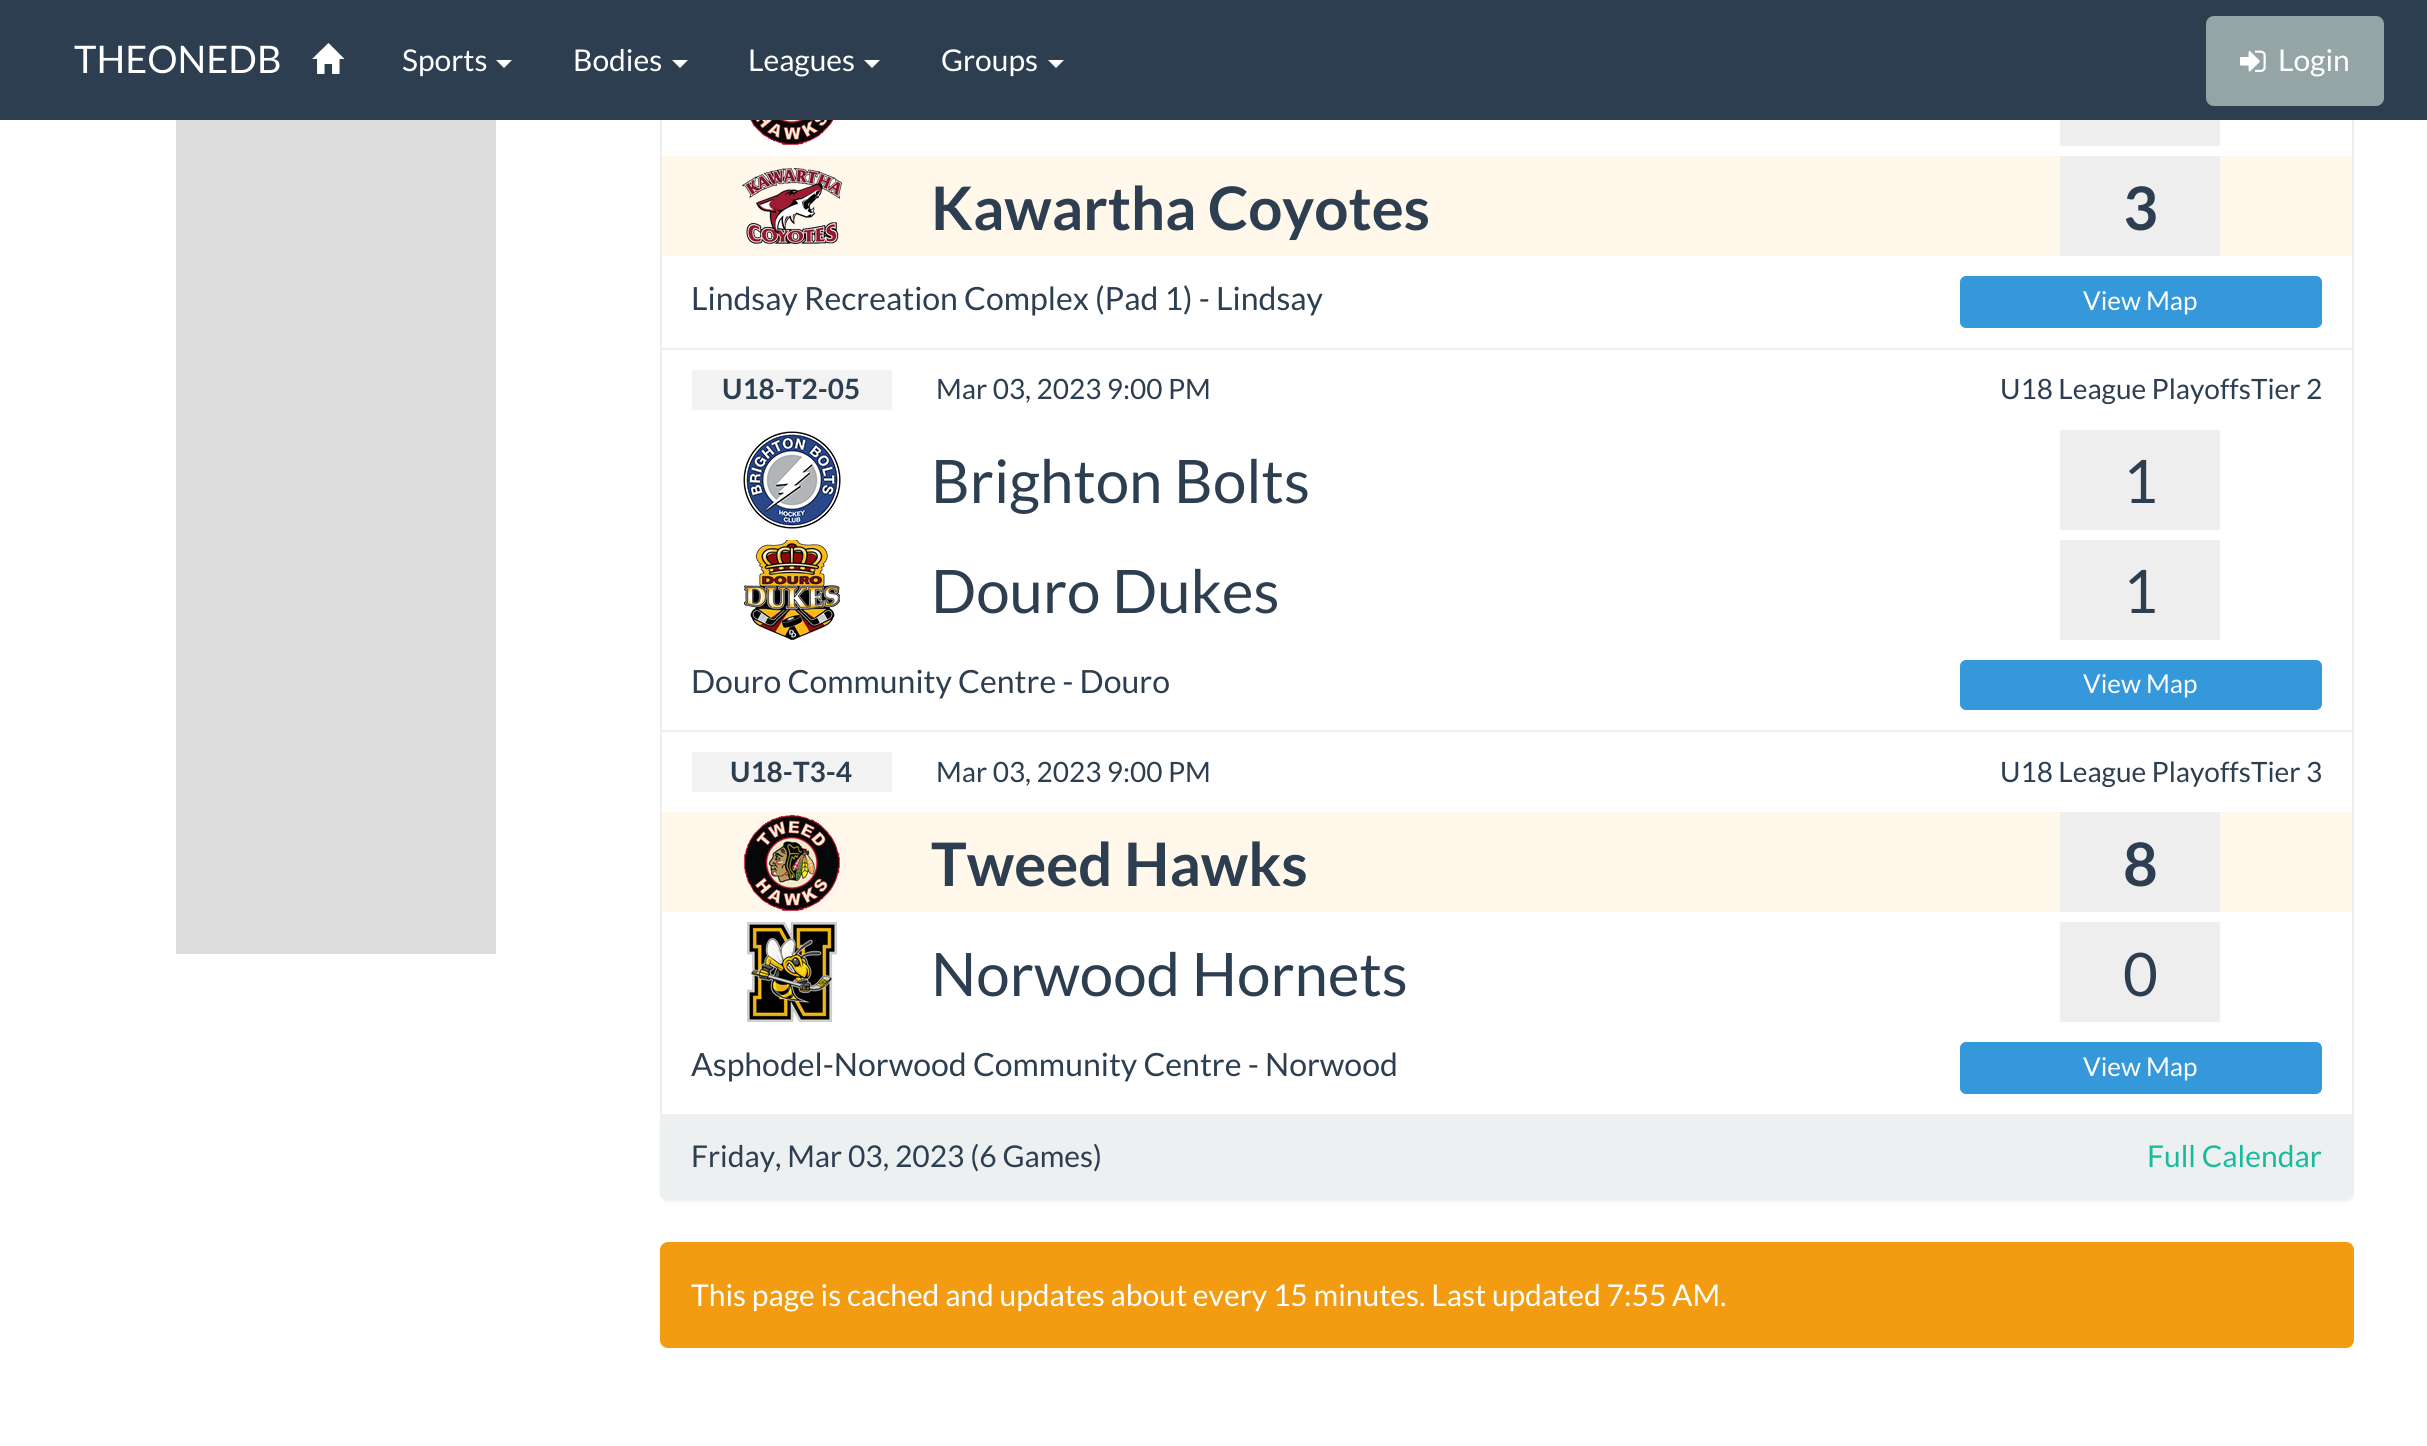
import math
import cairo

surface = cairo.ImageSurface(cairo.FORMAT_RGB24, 2427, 1446)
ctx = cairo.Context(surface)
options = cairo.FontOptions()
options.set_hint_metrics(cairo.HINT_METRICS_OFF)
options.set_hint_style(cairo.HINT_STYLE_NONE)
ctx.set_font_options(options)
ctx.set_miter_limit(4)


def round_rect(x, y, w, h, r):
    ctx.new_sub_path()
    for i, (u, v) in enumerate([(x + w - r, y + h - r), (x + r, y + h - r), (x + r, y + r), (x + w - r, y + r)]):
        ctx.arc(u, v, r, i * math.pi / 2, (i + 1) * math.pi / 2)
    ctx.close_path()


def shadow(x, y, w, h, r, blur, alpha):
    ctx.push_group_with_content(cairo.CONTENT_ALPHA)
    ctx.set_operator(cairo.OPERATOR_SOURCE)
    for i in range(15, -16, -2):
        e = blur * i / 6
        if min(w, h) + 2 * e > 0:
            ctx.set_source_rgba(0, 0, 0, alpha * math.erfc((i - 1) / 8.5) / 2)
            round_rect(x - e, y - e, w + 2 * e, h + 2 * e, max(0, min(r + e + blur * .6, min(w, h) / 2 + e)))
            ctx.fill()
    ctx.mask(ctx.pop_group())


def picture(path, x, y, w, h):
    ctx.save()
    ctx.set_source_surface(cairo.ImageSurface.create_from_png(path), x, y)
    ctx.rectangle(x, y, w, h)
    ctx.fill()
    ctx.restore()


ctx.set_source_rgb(1, 1, 1)
ctx.paint()
ctx.set_source_rgb(0, 0, 0)
shadow(660, -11, 1694, 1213, 8, 1, 0.05)
ctx.set_source_rgb(1, 1, 1)
round_rect(661, -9, 1692, 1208, 7)
ctx.fill_preserve()
ctx.set_source_rgb(0.925, 0.941, 0.945)
ctx.stroke()
ctx.set_source_rgb(0.173, 0.243, 0.314)
ctx.rectangle(0, 0, 2427, 120)
ctx.fill()
ctx.select_font_face("Lato")
ctx.set_font_size(38)
ctx.set_source_rgb(1, 1, 1)
ctx.move_to(74, 73)
ctx.show_text("THEONEDB")
picture("img1.png", 312, 43, 33, 31)
ctx.set_font_size(30)
ctx.move_to(402, 71)
ctx.show_text("Sports")
ctx.new_path()
ctx.move_to(496, 60)
ctx.line_to(512, 60)
ctx.line_to(504, 68)
ctx.close_path()
ctx.fill()
ctx.move_to(573, 71)
ctx.show_text("Bodies")
ctx.new_path()
ctx.move_to(672, 60)
ctx.line_to(688, 60)
ctx.line_to(680, 68)
ctx.close_path()
ctx.fill()
ctx.move_to(748, 71)
ctx.show_text("Leagues")
ctx.new_path()
ctx.move_to(864, 60)
ctx.line_to(880, 60)
ctx.line_to(872, 68)
ctx.close_path()
ctx.fill()
ctx.move_to(941, 71)
ctx.show_text("Groups")
ctx.new_path()
ctx.move_to(1048, 60)
ctx.line_to(1064, 60)
ctx.line_to(1056, 68)
ctx.close_path()
ctx.fill()
ctx.set_source_rgb(0.584, 0.647, 0.651)
round_rect(2208, 18, 174, 86, 6)
ctx.fill_preserve()
ctx.set_line_width(4)
ctx.stroke()
picture("img2.png", 2240, 50, 26, 22)
ctx.set_source_rgb(1, 1, 1)
ctx.move_to(2278, 71)
ctx.show_text("Login")
ctx.set_source_rgb(0.867, 0.867, 0.867)
ctx.rectangle(176, 120, 320, 834)
ctx.fill()
ctx.set_source_rgb(0.925, 0.941, 0.945)
ctx.rectangle(662, 348, 1690, 2)
ctx.fill()
picture("img3.png", 750, 120, 84, 25)
ctx.set_source_rgb(0.933, 0.933, 0.933)
ctx.rectangle(2060, 120, 160, 26)
ctx.fill()
ctx.set_source_rgb(1, 0.969, 0.918)
ctx.rectangle(662, 156, 1690, 100)
ctx.fill()
picture("img4.png", 742, 168, 100, 76)
ctx.select_font_face("Lato", cairo.FONT_SLANT_NORMAL, cairo.FONT_WEIGHT_BOLD)
ctx.set_font_size(60)
ctx.set_source_rgb(0.173, 0.243, 0.314)
ctx.move_to(931, 230)
ctx.show_text("Kawartha Coyotes")
ctx.set_source_rgb(0.933, 0.933, 0.933)
ctx.rectangle(2060, 156, 160, 100)
ctx.fill()
ctx.set_source_rgb(0.173, 0.243, 0.314)
ctx.move_to(2123, 230)
ctx.show_text("3")
ctx.select_font_face("Lato")
ctx.set_font_size(32)
ctx.move_to(691, 310)
ctx.show_text("Lindsay Recreation Complex (Pad 1) - Lindsay")
ctx.set_source_rgb(0.204, 0.596, 0.859)
round_rect(1962, 278, 358, 48, 4)
ctx.fill_preserve()
ctx.stroke()
ctx.set_font_size(26)
ctx.set_source_rgb(1, 1, 1)
ctx.move_to(2083, 310)
ctx.show_text("View Map")
ctx.set_source_rgb(0.925, 0.941, 0.945)
ctx.rectangle(662, 730, 1690, 2)
ctx.fill()
ctx.set_source_rgb(0.953, 0.953, 0.953)
ctx.rectangle(692, 370, 200, 40)
ctx.fill()
ctx.select_font_face("Lato", cairo.FONT_SLANT_NORMAL, cairo.FONT_WEIGHT_BOLD)
ctx.set_font_size(28)
ctx.set_source_rgb(0.173, 0.243, 0.314)
ctx.move_to(722, 399)
ctx.show_text("U18-T2-05")
ctx.select_font_face("Lato")
ctx.move_to(936, 399)
ctx.show_text("Mar 03, 2023 9:00 PM")
ctx.move_to(2000, 399)
ctx.show_text("U18 League PlayoffsTier 2")
picture("img5.png", 742, 431, 100, 98)
ctx.set_font_size(60)
ctx.move_to(931, 503)
ctx.show_text("Brighton Bolts")
ctx.set_source_rgb(0.933, 0.933, 0.933)
ctx.rectangle(2060, 430, 160, 100)
ctx.fill()
ctx.set_source_rgb(0.173, 0.243, 0.314)
ctx.move_to(2123, 503)
ctx.show_text("1")
picture("img6.png", 744, 540, 96, 100)
ctx.move_to(931, 613)
ctx.show_text("Douro Dukes")
ctx.set_source_rgb(0.933, 0.933, 0.933)
ctx.rectangle(2060, 540, 160, 100)
ctx.fill()
ctx.set_source_rgb(0.173, 0.243, 0.314)
ctx.move_to(2123, 613)
ctx.show_text("1")
ctx.set_font_size(32)
ctx.move_to(691, 693)
ctx.show_text("Douro Community Centre - Douro")
ctx.set_source_rgb(0.204, 0.596, 0.859)
round_rect(1962, 662, 358, 46, 4)
ctx.fill_preserve()
ctx.stroke()
ctx.set_font_size(26)
ctx.set_source_rgb(1, 1, 1)
ctx.move_to(2083, 693)
ctx.show_text("View Map")
ctx.set_source_rgb(0.925, 0.941, 0.945)
ctx.rectangle(662, 1114, 1690, 2)
ctx.fill()
ctx.set_source_rgb(0.953, 0.953, 0.953)
ctx.rectangle(692, 752, 200, 40)
ctx.fill()
ctx.select_font_face("Lato", cairo.FONT_SLANT_NORMAL, cairo.FONT_WEIGHT_BOLD)
ctx.set_font_size(28)
ctx.set_source_rgb(0.173, 0.243, 0.314)
ctx.move_to(730, 782)
ctx.show_text("U18-T3-4")
ctx.select_font_face("Lato")
ctx.move_to(936, 782)
ctx.show_text("Mar 03, 2023 9:00 PM")
ctx.move_to(2000, 782)
ctx.show_text("U18 League PlayoffsTier 3")
ctx.set_source_rgb(1, 0.969, 0.918)
ctx.rectangle(662, 812, 1690, 100)
ctx.fill()
picture("img7.png", 744, 815, 96, 96)
ctx.select_font_face("Lato", cairo.FONT_SLANT_NORMAL, cairo.FONT_WEIGHT_BOLD)
ctx.set_font_size(60)
ctx.set_source_rgb(0.173, 0.243, 0.314)
ctx.move_to(931, 886)
ctx.show_text("Tweed Hawks")
ctx.set_source_rgb(0.933, 0.933, 0.933)
ctx.rectangle(2060, 812, 160, 100)
ctx.fill()
ctx.set_source_rgb(0.173, 0.243, 0.314)
ctx.move_to(2123, 886)
ctx.show_text("8")
picture("img8.png", 747, 922, 90, 100)
ctx.select_font_face("Lato")
ctx.move_to(931, 996)
ctx.show_text("Norwood Hornets")
ctx.set_source_rgb(0.933, 0.933, 0.933)
ctx.rectangle(2060, 922, 160, 100)
ctx.fill()
ctx.set_source_rgb(0.173, 0.243, 0.314)
ctx.move_to(2123, 996)
ctx.show_text("0")
ctx.set_font_size(32)
ctx.move_to(691, 1076)
ctx.show_text("Asphodel-Norwood Community Centre - Norwood")
ctx.set_source_rgb(0.204, 0.596, 0.859)
round_rect(1962, 1044, 358, 48, 4)
ctx.fill_preserve()
ctx.stroke()
ctx.set_font_size(26)
ctx.set_source_rgb(1, 1, 1)
ctx.move_to(2083, 1076)
ctx.show_text("View Map")
ctx.set_source_rgb(0.925, 0.941, 0.945)
ctx.new_path()
ctx.move_to(662, 1116)
ctx.line_to(2352, 1116)
ctx.line_to(2352, 1192)
ctx.curve_to(2352, 1195.5, 2349.5, 1198, 2346, 1198)
ctx.line_to(668, 1198)
ctx.curve_to(664.5, 1198, 662, 1195.5, 662, 1192)
ctx.close_path()
ctx.fill()
ctx.set_font_size(30)
ctx.set_source_rgb(0.173, 0.243, 0.314)
ctx.move_to(691, 1167)
ctx.show_text("Friday, Mar 03, 2023 (6 Games)")
ctx.set_source_rgb(0.094, 0.737, 0.612)
ctx.move_to(2147, 1167)
ctx.show_text("Full Calendar")
ctx.set_source_rgb(0.953, 0.612, 0.071)
round_rect(661, 1243, 1692, 104, 7)
ctx.fill_preserve()
ctx.set_line_width(2)
ctx.stroke()
ctx.set_source_rgb(1, 1, 1)
ctx.move_to(691, 1306)
ctx.show_text("This page is cached and updates about every 15 minutes. Last updated 7:55 AM.")
surface.write_to_png("page.png")
